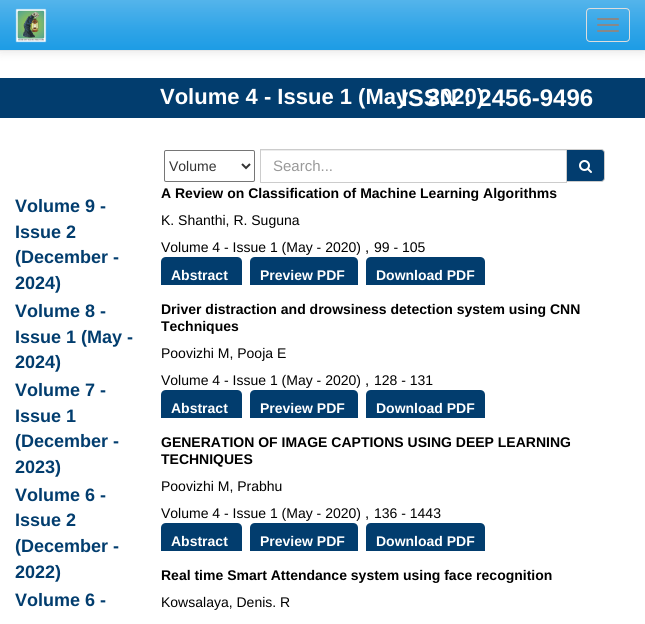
import math
import cairo

surface = cairo.ImageSurface(cairo.FORMAT_RGB24, 645, 624)
ctx = cairo.Context(surface)
options = cairo.FontOptions()
options.set_hint_metrics(cairo.HINT_METRICS_OFF)
options.set_hint_style(cairo.HINT_STYLE_NONE)
ctx.set_font_options(options)
ctx.set_miter_limit(4)


def round_rect(x, y, w, h, r):
    ctx.new_sub_path()
    for i, (u, v) in enumerate([(x + w - r, y + h - r), (x + r, y + h - r), (x + r, y + r), (x + w - r, y + r)]):
        ctx.arc(u, v, r, i * math.pi / 2, (i + 1) * math.pi / 2)
    ctx.close_path()


def shadow(x, y, w, h, r, blur, alpha):
    ctx.push_group_with_content(cairo.CONTENT_ALPHA)
    ctx.set_operator(cairo.OPERATOR_SOURCE)
    for i in range(15, -16, -2):
        e = blur * i / 6
        if min(w, h) + 2 * e > 0:
            ctx.set_source_rgba(0, 0, 0, alpha * math.erfc((i - 1) / 8.5) / 2)
            round_rect(x - e, y - e, w + 2 * e, h + 2 * e, max(0, min(r + e + blur * .6, min(w, h) / 2 + e)))
            ctx.fill()
    ctx.mask(ctx.pop_group())


def picture(path, x, y, w, h):
    ctx.save()
    ctx.set_source_surface(cairo.ImageSurface.create_from_png(path), x, y)
    ctx.rectangle(x, y, w, h)
    ctx.fill()
    ctx.restore()


ctx.set_source_rgb(1, 1, 1)
ctx.paint()
ctx.set_source_rgb(0, 0, 0)
shadow(0, 1, 645, 51, 0, 5, 0.1)
gradient = cairo.LinearGradient(323, 0, 323, 50)
gradient.add_color_stop_rgba(0, 0.329, 0.706, 0.922, 1)
gradient.add_color_stop_rgba(0.6, 0.184, 0.643, 0.906, 1)
gradient.add_color_stop_rgba(1, 0.114, 0.612, 0.898, 1)
ctx.set_source(gradient)
ctx.rectangle(0, 0, 645, 50)
ctx.fill()
ctx.set_source_rgb(0.906, 0.906, 0.906)
ctx.rectangle(0, 50, 645, 1)
ctx.fill()
picture("img1.png", 15, 8, 32, 35)
round_rect(586.5, 8.5, 43, 33, 3.5)
ctx.set_source_rgb(0.867, 0.867, 0.867)
ctx.set_line_width(1)
ctx.stroke()
ctx.set_source_rgb(0.533, 0.533, 0.533)
round_rect(597, 18, 22, 2, 1)
ctx.fill()
round_rect(597, 24, 22, 2, 1)
ctx.fill()
round_rect(597, 30, 22, 2, 1)
ctx.fill()
ctx.set_source_rgb(0.008, 0.239, 0.431)
ctx.rectangle(0, 78, 645, 40)
ctx.fill()
ctx.select_font_face("Liberation Sans", cairo.FONT_SLANT_NORMAL, cairo.FONT_WEIGHT_BOLD)
ctx.set_font_size(22)
ctx.set_source_rgb(1, 1, 1)
ctx.move_to(160, 104)
ctx.show_text("Volume 4 - Issue 1 (May - 2020)")
ctx.set_font_size(24)
ctx.move_to(401, 106)
ctx.show_text("ISSN : 2456-9496")
round_rect(164.5, 150.5, 90, 31, 1.5)
ctx.set_source_rgb(0.463, 0.463, 0.463)
ctx.stroke()
ctx.new_path()
ctx.move_to(242, 164)
ctx.line_to(246, 168)
ctx.line_to(250, 164)
ctx.set_source_rgb(0.2, 0.2, 0.2)
ctx.set_line_width(2)
ctx.stroke()
ctx.select_font_face("Liberation Sans")
ctx.set_font_size(14)
ctx.move_to(169, 171)
ctx.show_text("Volume")
ctx.set_source_rgb(0.925, 0.925, 0.925)
ctx.rectangle(261, 150, 305, 1)
ctx.fill()
ctx.rectangle(260.5, 149.5, 306, 33)
ctx.set_source_rgb(0.8, 0.8, 0.8)
ctx.set_line_width(1)
ctx.stroke()
ctx.set_font_size(15)
ctx.set_source_rgb(0.6, 0.6, 0.6)
ctx.move_to(273, 171)
ctx.show_text("Search...")
ctx.set_source_rgb(0.008, 0.239, 0.435)
ctx.new_path()
ctx.move_to(566.5, 149.5)
ctx.line_to(601, 149.5)
ctx.curve_to(603, 149.5, 604.5, 151, 604.5, 153)
ctx.line_to(604.5, 178)
ctx.curve_to(604.5, 180, 603, 181.5, 601, 181.5)
ctx.line_to(566.5, 181.5)
ctx.close_path()
ctx.fill_preserve()
ctx.set_source_rgb(0.8, 0.8, 0.8)
ctx.stroke()
picture("img2.png", 579, 160, 13, 13)
ctx.select_font_face("Liberation Sans", cairo.FONT_SLANT_NORMAL, cairo.FONT_WEIGHT_BOLD)
ctx.set_font_size(18)
ctx.set_source_rgb(0.008, 0.239, 0.431)
ctx.move_to(15, 212)
ctx.show_text("Volume 9 -")
ctx.move_to(15, 238)
ctx.show_text("Issue 2")
ctx.move_to(15, 263)
ctx.show_text("(December -")
ctx.move_to(15, 289)
ctx.show_text("2024)")
ctx.move_to(15, 317)
ctx.show_text("Volume 8 -")
ctx.move_to(15, 343)
ctx.show_text("Issue 1 (May -")
ctx.move_to(15, 368)
ctx.show_text("2024)")
ctx.move_to(15, 396)
ctx.show_text("Volume 7 -")
ctx.move_to(15, 422)
ctx.show_text("Issue 1")
ctx.move_to(15, 447)
ctx.show_text("(December -")
ctx.move_to(15, 473)
ctx.show_text("2023)")
ctx.move_to(15, 501)
ctx.show_text("Volume 6 -")
ctx.move_to(15, 526)
ctx.show_text("Issue 2")
ctx.move_to(15, 552)
ctx.show_text("(December -")
ctx.move_to(15, 578)
ctx.show_text("2022)")
ctx.move_to(15, 606)
ctx.show_text("Volume 6 -")
ctx.set_font_size(14)
ctx.set_source_rgb(0, 0, 0)
ctx.move_to(161, 198)
ctx.show_text("A Review on Classification of Machine Learning Algorithms")
ctx.select_font_face("Liberation Sans")
ctx.move_to(161, 225)
ctx.show_text("K. Shanthi, R. Suguna")
ctx.move_to(161, 252)
ctx.show_text("Volume 4 - Issue 1 (May - 2020)")
ctx.set_font_size(15)
ctx.move_to(365, 252)
ctx.show_text(",")
ctx.set_font_size(14)
ctx.move_to(374, 252)
ctx.show_text("99 - 105")
ctx.set_source_rgb(0.008, 0.239, 0.431)
ctx.new_path()
ctx.move_to(166, 257)
ctx.line_to(228, 257)
ctx.line_to(228, 285)
ctx.line_to(161, 285)
ctx.line_to(161, 262)
ctx.curve_to(161, 259, 163, 257, 166, 257)
ctx.close_path()
ctx.fill()
ctx.select_font_face("Liberation Sans", cairo.FONT_SLANT_NORMAL, cairo.FONT_WEIGHT_BOLD)
ctx.set_source_rgb(1, 1, 1)
ctx.move_to(171, 280)
ctx.show_text("Abstract")
ctx.set_source_rgb(0.008, 0.239, 0.431)
ctx.new_path()
ctx.move_to(228, 257)
ctx.line_to(237, 257)
ctx.curve_to(240, 257, 242, 259, 242, 262)
ctx.line_to(242, 285)
ctx.line_to(228, 285)
ctx.close_path()
ctx.fill()
ctx.new_path()
ctx.move_to(255, 257)
ctx.line_to(345, 257)
ctx.line_to(345, 285)
ctx.line_to(250, 285)
ctx.line_to(250, 262)
ctx.curve_to(250, 259, 252, 257, 255, 257)
ctx.close_path()
ctx.fill()
ctx.set_source_rgb(1, 1, 1)
ctx.move_to(260, 280)
ctx.show_text("Preview PDF")
ctx.set_source_rgb(0.008, 0.239, 0.431)
ctx.new_path()
ctx.move_to(345, 257)
ctx.line_to(353, 257)
ctx.curve_to(356, 257, 358, 259, 358, 262)
ctx.line_to(358, 285)
ctx.line_to(345, 285)
ctx.close_path()
ctx.fill()
ctx.new_path()
ctx.move_to(371, 257)
ctx.line_to(480, 257)
ctx.curve_to(483, 257, 485, 259, 485, 262)
ctx.line_to(485, 285)
ctx.line_to(366, 285)
ctx.line_to(366, 262)
ctx.curve_to(366, 259, 368, 257, 371, 257)
ctx.close_path()
ctx.fill()
ctx.set_source_rgb(1, 1, 1)
ctx.move_to(376, 280)
ctx.show_text("Download PDF")
ctx.set_source_rgb(0, 0, 0)
ctx.move_to(161, 314)
ctx.show_text("Driver distraction and drowsiness detection system using CNN")
ctx.move_to(161, 331)
ctx.show_text("Techniques")
ctx.select_font_face("Liberation Sans")
ctx.move_to(161, 358)
ctx.show_text("Poovizhi M, Pooja E")
ctx.move_to(161, 385)
ctx.show_text("Volume 4 - Issue 1 (May - 2020)")
ctx.set_font_size(15)
ctx.move_to(365, 385)
ctx.show_text(",")
ctx.set_font_size(14)
ctx.move_to(374, 385)
ctx.show_text("128 - 131")
ctx.set_source_rgb(0.008, 0.239, 0.431)
ctx.new_path()
ctx.move_to(166, 390)
ctx.line_to(228, 390)
ctx.line_to(228, 418)
ctx.line_to(161, 418)
ctx.line_to(161, 395)
ctx.curve_to(161, 392, 163, 390, 166, 390)
ctx.close_path()
ctx.fill()
ctx.select_font_face("Liberation Sans", cairo.FONT_SLANT_NORMAL, cairo.FONT_WEIGHT_BOLD)
ctx.set_source_rgb(1, 1, 1)
ctx.move_to(171, 413)
ctx.show_text("Abstract")
ctx.set_source_rgb(0.008, 0.239, 0.431)
ctx.new_path()
ctx.move_to(228, 390)
ctx.line_to(237, 390)
ctx.curve_to(240, 390, 242, 392, 242, 395)
ctx.line_to(242, 418)
ctx.line_to(228, 418)
ctx.close_path()
ctx.fill()
ctx.new_path()
ctx.move_to(255, 390)
ctx.line_to(345, 390)
ctx.line_to(345, 418)
ctx.line_to(250, 418)
ctx.line_to(250, 395)
ctx.curve_to(250, 392, 252, 390, 255, 390)
ctx.close_path()
ctx.fill()
ctx.set_source_rgb(1, 1, 1)
ctx.move_to(260, 413)
ctx.show_text("Preview PDF")
ctx.set_source_rgb(0.008, 0.239, 0.431)
ctx.new_path()
ctx.move_to(345, 390)
ctx.line_to(353, 390)
ctx.curve_to(356, 390, 358, 392, 358, 395)
ctx.line_to(358, 418)
ctx.line_to(345, 418)
ctx.close_path()
ctx.fill()
ctx.new_path()
ctx.move_to(371, 390)
ctx.line_to(480, 390)
ctx.curve_to(483, 390, 485, 392, 485, 395)
ctx.line_to(485, 418)
ctx.line_to(366, 418)
ctx.line_to(366, 395)
ctx.curve_to(366, 392, 368, 390, 371, 390)
ctx.close_path()
ctx.fill()
ctx.set_source_rgb(1, 1, 1)
ctx.move_to(376, 413)
ctx.show_text("Download PDF")
ctx.set_source_rgb(0, 0, 0)
ctx.move_to(161, 447)
ctx.show_text("GENERATION OF IMAGE CAPTIONS USING DEEP LEARNING")
ctx.move_to(161, 464)
ctx.show_text("TECHNIQUES")
ctx.select_font_face("Liberation Sans")
ctx.move_to(161, 491)
ctx.show_text("Poovizhi M, Prabhu")
ctx.move_to(161, 518)
ctx.show_text("Volume 4 - Issue 1 (May - 2020)")
ctx.set_font_size(15)
ctx.move_to(365, 518)
ctx.show_text(",")
ctx.set_font_size(14)
ctx.move_to(374, 518)
ctx.show_text("136 - 1443")
ctx.set_source_rgb(0.008, 0.239, 0.431)
ctx.new_path()
ctx.move_to(166, 523)
ctx.line_to(228, 523)
ctx.line_to(228, 551)
ctx.line_to(161, 551)
ctx.line_to(161, 528)
ctx.curve_to(161, 525, 163, 523, 166, 523)
ctx.close_path()
ctx.fill()
ctx.select_font_face("Liberation Sans", cairo.FONT_SLANT_NORMAL, cairo.FONT_WEIGHT_BOLD)
ctx.set_source_rgb(1, 1, 1)
ctx.move_to(171, 546)
ctx.show_text("Abstract")
ctx.set_source_rgb(0.008, 0.239, 0.431)
ctx.new_path()
ctx.move_to(228, 523)
ctx.line_to(237, 523)
ctx.curve_to(240, 523, 242, 525, 242, 528)
ctx.line_to(242, 551)
ctx.line_to(228, 551)
ctx.close_path()
ctx.fill()
ctx.new_path()
ctx.move_to(255, 523)
ctx.line_to(345, 523)
ctx.line_to(345, 551)
ctx.line_to(250, 551)
ctx.line_to(250, 528)
ctx.curve_to(250, 525, 252, 523, 255, 523)
ctx.close_path()
ctx.fill()
ctx.set_source_rgb(1, 1, 1)
ctx.move_to(260, 546)
ctx.show_text("Preview PDF")
ctx.set_source_rgb(0.008, 0.239, 0.431)
ctx.new_path()
ctx.move_to(345, 523)
ctx.line_to(353, 523)
ctx.curve_to(356, 523, 358, 525, 358, 528)
ctx.line_to(358, 551)
ctx.line_to(345, 551)
ctx.close_path()
ctx.fill()
ctx.new_path()
ctx.move_to(371, 523)
ctx.line_to(480, 523)
ctx.curve_to(483, 523, 485, 525, 485, 528)
ctx.line_to(485, 551)
ctx.line_to(366, 551)
ctx.line_to(366, 528)
ctx.curve_to(366, 525, 368, 523, 371, 523)
ctx.close_path()
ctx.fill()
ctx.set_source_rgb(1, 1, 1)
ctx.move_to(376, 546)
ctx.show_text("Download PDF")
ctx.set_source_rgb(0, 0, 0)
ctx.move_to(161, 580)
ctx.show_text("Real time Smart Attendance system using face recognition")
ctx.select_font_face("Liberation Sans")
ctx.move_to(161, 607)
ctx.show_text("Kowsalaya, Denis. R")
surface.write_to_png("page.png")
